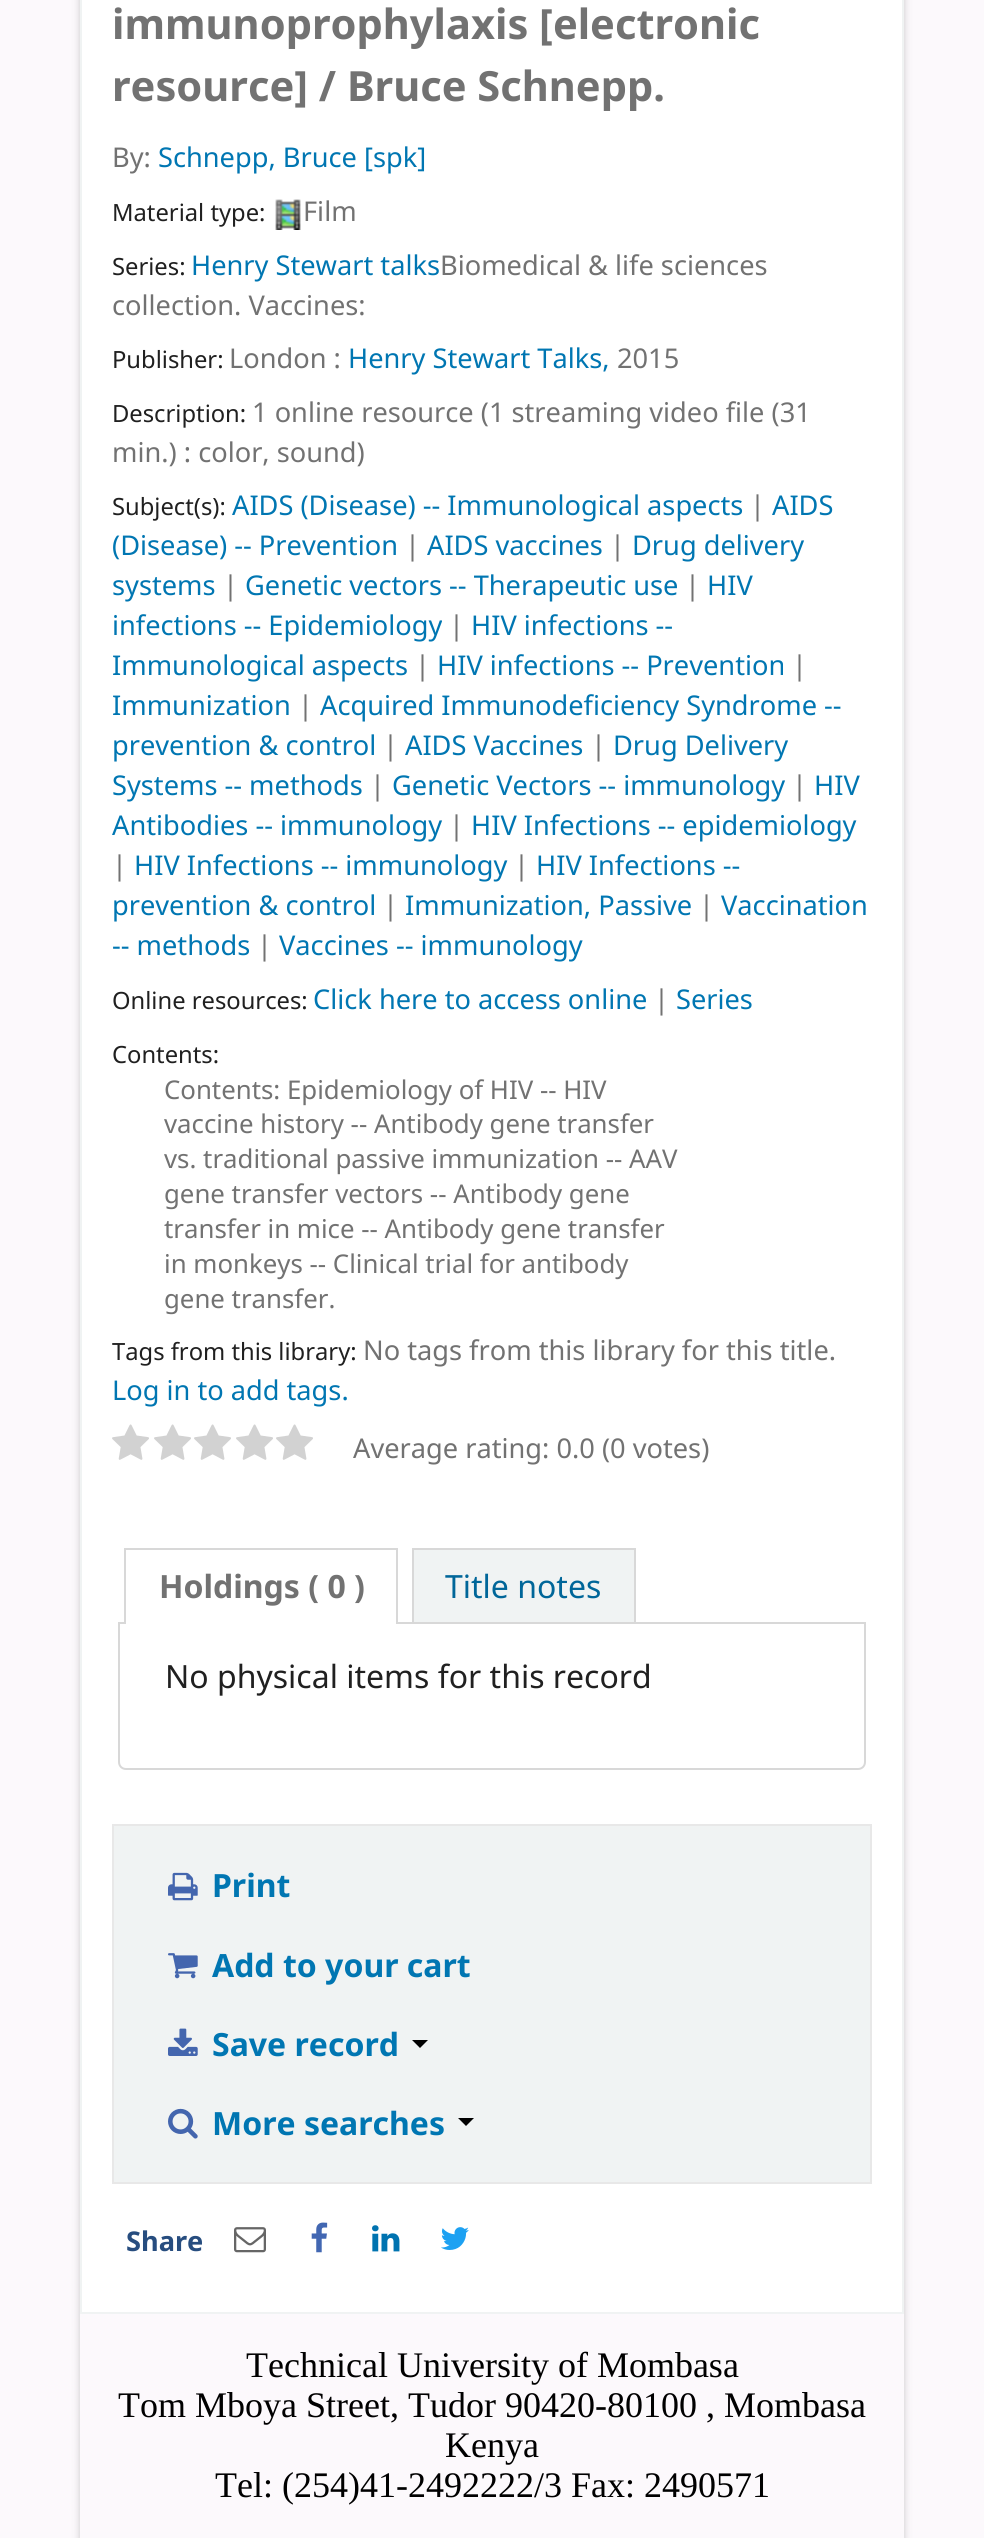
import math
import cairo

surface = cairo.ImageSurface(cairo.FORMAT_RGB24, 984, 2538)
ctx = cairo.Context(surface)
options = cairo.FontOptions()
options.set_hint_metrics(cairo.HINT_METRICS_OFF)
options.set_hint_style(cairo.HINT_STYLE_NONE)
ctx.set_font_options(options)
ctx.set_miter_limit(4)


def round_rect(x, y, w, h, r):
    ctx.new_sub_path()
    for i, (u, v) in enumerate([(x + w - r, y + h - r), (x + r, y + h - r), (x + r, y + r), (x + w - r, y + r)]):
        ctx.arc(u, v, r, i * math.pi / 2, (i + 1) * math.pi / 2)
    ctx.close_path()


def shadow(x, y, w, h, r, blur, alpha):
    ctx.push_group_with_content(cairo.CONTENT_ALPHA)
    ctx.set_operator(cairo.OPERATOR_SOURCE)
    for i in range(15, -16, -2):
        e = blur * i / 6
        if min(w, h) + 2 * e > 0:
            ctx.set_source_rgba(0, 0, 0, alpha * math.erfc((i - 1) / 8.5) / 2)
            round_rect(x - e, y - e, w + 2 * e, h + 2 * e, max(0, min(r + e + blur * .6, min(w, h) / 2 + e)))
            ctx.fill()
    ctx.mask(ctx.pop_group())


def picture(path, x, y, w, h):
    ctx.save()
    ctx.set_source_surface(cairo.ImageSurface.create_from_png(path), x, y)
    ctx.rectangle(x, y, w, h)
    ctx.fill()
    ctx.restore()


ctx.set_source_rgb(0.988, 0.976, 0.988)
ctx.paint()
ctx.save()
ctx.set_fill_rule(cairo.FILL_RULE_EVEN_ODD)
ctx.new_path()
ctx.move_to(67, 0)
ctx.line_to(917, 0)
ctx.line_to(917, 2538)
ctx.line_to(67, 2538)
ctx.close_path()
ctx.move_to(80, -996)
ctx.line_to(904, -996)
ctx.line_to(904, 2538)
ctx.line_to(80, 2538)
ctx.close_path()
ctx.clip()
ctx.set_source_rgb(0, 0, 0)
shadow(80, -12, 824, 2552, 0, 4, 0.2)
ctx.restore()
ctx.set_source_rgb(1, 1, 1)
ctx.rectangle(81, -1, 822, 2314)
ctx.fill_preserve()
ctx.set_source_rgb(0.941, 0.953, 0.953)
ctx.stroke()
ctx.select_font_face("Noto Sans", cairo.FONT_SLANT_NORMAL, cairo.FONT_WEIGHT_BOLD)
ctx.set_font_size(41.6)
ctx.set_source_rgb(0.447, 0.447, 0.447)
ctx.move_to(112, 39)
ctx.show_text("immunoprophylaxis [electronic")
ctx.move_to(112, 101)
ctx.show_text("resource] / Bruce Schnepp.")
ctx.select_font_face("Noto Sans")
ctx.set_font_size(27.2)
ctx.move_to(112, 167)
ctx.show_text("By:")
ctx.set_source_rgb(0, 0.463, 0.698)
ctx.move_to(158, 167)
ctx.show_text("Schnepp, Bruce [spk]")
ctx.set_font_size(23.75)
ctx.set_source_rgb(0.125, 0.125, 0.125)
ctx.move_to(112, 221)
ctx.show_text("Material type:")
picture("img1.png", 275, 199, 26, 31)
ctx.set_font_size(27.2)
ctx.set_source_rgb(0.447, 0.447, 0.447)
ctx.move_to(303, 221)
ctx.show_text("Film")
ctx.set_font_size(23.75)
ctx.set_source_rgb(0.125, 0.125, 0.125)
ctx.move_to(112, 275)
ctx.show_text("Series:")
ctx.set_font_size(27.2)
ctx.set_source_rgb(0, 0.463, 0.698)
ctx.move_to(191, 275)
ctx.show_text("Henry Stewart talks")
ctx.set_source_rgb(0.447, 0.447, 0.447)
ctx.move_to(440, 275)
ctx.show_text("Biomedical & life sciences")
ctx.move_to(112, 315)
ctx.show_text("collection. Vaccines:")
ctx.set_font_size(23.75)
ctx.set_source_rgb(0.125, 0.125, 0.125)
ctx.move_to(112, 368)
ctx.show_text("Publisher:")
ctx.set_font_size(27.2)
ctx.set_source_rgb(0.447, 0.447, 0.447)
ctx.move_to(229, 368)
ctx.show_text("London :")
ctx.set_source_rgb(0, 0.463, 0.698)
ctx.move_to(348, 368)
ctx.show_text("Henry Stewart Talks,")
ctx.set_source_rgb(0.447, 0.447, 0.447)
ctx.move_to(617, 368)
ctx.show_text("2015")
ctx.set_font_size(23.75)
ctx.set_source_rgb(0.125, 0.125, 0.125)
ctx.move_to(112, 422)
ctx.show_text("Description:")
ctx.set_font_size(27.2)
ctx.set_source_rgb(0.447, 0.447, 0.447)
ctx.move_to(252, 422)
ctx.show_text("1 online resource (1 streaming video file (31")
ctx.move_to(112, 462)
ctx.show_text("min.) : color, sound)")
ctx.set_font_size(23.75)
ctx.set_source_rgb(0.125, 0.125, 0.125)
ctx.move_to(112, 515)
ctx.show_text("Subject(s):")
ctx.set_font_size(27.2)
ctx.set_source_rgb(0, 0.463, 0.698)
ctx.move_to(232, 515)
ctx.show_text("AIDS (Disease) -- Immunological aspects")
ctx.set_source_rgb(0.447, 0.447, 0.447)
ctx.move_to(750, 515)
ctx.show_text("|")
ctx.set_source_rgb(0, 0.463, 0.698)
ctx.move_to(772, 515)
ctx.show_text("AIDS")
ctx.move_to(112, 555)
ctx.show_text("(Disease) -- Prevention")
ctx.set_source_rgb(0.447, 0.447, 0.447)
ctx.move_to(405, 555)
ctx.show_text("|")
ctx.set_source_rgb(0, 0.463, 0.698)
ctx.move_to(427, 555)
ctx.show_text("AIDS vaccines")
ctx.set_source_rgb(0.447, 0.447, 0.447)
ctx.move_to(610, 555)
ctx.show_text("|")
ctx.set_source_rgb(0, 0.463, 0.698)
ctx.move_to(632, 555)
ctx.show_text("Drug delivery")
ctx.move_to(112, 595)
ctx.show_text("systems")
ctx.set_source_rgb(0.447, 0.447, 0.447)
ctx.move_to(223, 595)
ctx.show_text("|")
ctx.set_source_rgb(0, 0.463, 0.698)
ctx.move_to(245, 595)
ctx.show_text("Genetic vectors -- Therapeutic use")
ctx.set_source_rgb(0.447, 0.447, 0.447)
ctx.move_to(685, 595)
ctx.show_text("|")
ctx.set_source_rgb(0, 0.463, 0.698)
ctx.move_to(707, 595)
ctx.show_text("HIV")
ctx.move_to(112, 635)
ctx.show_text("infections -- Epidemiology")
ctx.set_source_rgb(0.447, 0.447, 0.447)
ctx.move_to(449, 635)
ctx.show_text("|")
ctx.set_source_rgb(0, 0.463, 0.698)
ctx.move_to(471, 635)
ctx.show_text("HIV infections --")
ctx.move_to(112, 675)
ctx.show_text("Immunological aspects")
ctx.set_source_rgb(0.447, 0.447, 0.447)
ctx.move_to(415, 675)
ctx.show_text("|")
ctx.set_source_rgb(0, 0.463, 0.698)
ctx.move_to(437, 675)
ctx.show_text("HIV infections -- Prevention")
ctx.set_source_rgb(0.447, 0.447, 0.447)
ctx.move_to(792, 675)
ctx.show_text("|")
ctx.set_source_rgb(0, 0.463, 0.698)
ctx.move_to(112, 715)
ctx.show_text("Immunization")
ctx.set_source_rgb(0.447, 0.447, 0.447)
ctx.move_to(298, 715)
ctx.show_text("|")
ctx.set_source_rgb(0, 0.463, 0.698)
ctx.move_to(320, 715)
ctx.show_text("Acquired Immunodeficiency Syndrome --")
ctx.move_to(112, 755)
ctx.show_text("prevention & control")
ctx.set_source_rgb(0.447, 0.447, 0.447)
ctx.move_to(383, 755)
ctx.show_text("|")
ctx.set_source_rgb(0, 0.463, 0.698)
ctx.move_to(405, 755)
ctx.show_text("AIDS Vaccines")
ctx.set_source_rgb(0.447, 0.447, 0.447)
ctx.move_to(591, 755)
ctx.show_text("|")
ctx.set_source_rgb(0, 0.463, 0.698)
ctx.move_to(613, 755)
ctx.show_text("Drug Delivery")
ctx.move_to(112, 795)
ctx.show_text("Systems -- methods")
ctx.set_source_rgb(0.447, 0.447, 0.447)
ctx.move_to(370, 795)
ctx.show_text("|")
ctx.set_source_rgb(0, 0.463, 0.698)
ctx.move_to(392, 795)
ctx.show_text("Genetic Vectors -- immunology")
ctx.set_source_rgb(0.447, 0.447, 0.447)
ctx.move_to(792, 795)
ctx.show_text("|")
ctx.set_source_rgb(0, 0.463, 0.698)
ctx.move_to(814, 795)
ctx.show_text("HIV")
ctx.move_to(112, 835)
ctx.show_text("Antibodies -- immunology")
ctx.set_source_rgb(0.447, 0.447, 0.447)
ctx.move_to(449, 835)
ctx.show_text("|")
ctx.set_source_rgb(0, 0.463, 0.698)
ctx.move_to(471, 835)
ctx.show_text("HIV Infections -- epidemiology")
ctx.set_source_rgb(0.447, 0.447, 0.447)
ctx.move_to(112, 875)
ctx.show_text("|")
ctx.set_source_rgb(0, 0.463, 0.698)
ctx.move_to(134, 875)
ctx.show_text("HIV Infections -- immunology")
ctx.set_source_rgb(0.447, 0.447, 0.447)
ctx.move_to(514, 875)
ctx.show_text("|")
ctx.set_source_rgb(0, 0.463, 0.698)
ctx.move_to(536, 875)
ctx.show_text("HIV Infections --")
ctx.move_to(112, 915)
ctx.show_text("prevention & control")
ctx.set_source_rgb(0.447, 0.447, 0.447)
ctx.move_to(383, 915)
ctx.show_text("|")
ctx.set_source_rgb(0, 0.463, 0.698)
ctx.move_to(405, 915)
ctx.show_text("Immunization, Passive")
ctx.set_source_rgb(0.447, 0.447, 0.447)
ctx.move_to(699, 915)
ctx.show_text("|")
ctx.set_source_rgb(0, 0.463, 0.698)
ctx.move_to(721, 915)
ctx.show_text("Vaccination")
ctx.move_to(112, 955)
ctx.show_text("-- methods")
ctx.set_source_rgb(0.447, 0.447, 0.447)
ctx.move_to(257, 955)
ctx.show_text("|")
ctx.set_source_rgb(0, 0.463, 0.698)
ctx.move_to(279, 955)
ctx.show_text("Vaccines -- immunology")
ctx.set_font_size(23.75)
ctx.set_source_rgb(0.125, 0.125, 0.125)
ctx.move_to(112, 1009)
ctx.show_text("Online resources:")
ctx.set_font_size(27.2)
ctx.set_source_rgb(0, 0.463, 0.698)
ctx.move_to(313, 1009)
ctx.show_text("Click here to access online")
ctx.set_source_rgb(0.447, 0.447, 0.447)
ctx.move_to(654, 1009)
ctx.show_text("|")
ctx.set_source_rgb(0, 0.463, 0.698)
ctx.move_to(676, 1009)
ctx.show_text("Series")
ctx.set_font_size(23.75)
ctx.set_source_rgb(0.125, 0.125, 0.125)
ctx.move_to(112, 1063)
ctx.show_text("Contents:")
ctx.set_font_size(25.8)
ctx.set_source_rgb(0.447, 0.447, 0.447)
ctx.move_to(164, 1099)
ctx.show_text("Contents: Epidemiology of HIV -- HIV")
ctx.move_to(164, 1133)
ctx.show_text("vaccine history -- Antibody gene transfer")
ctx.move_to(164, 1168)
ctx.show_text("vs. traditional passive immunization -- AAV")
ctx.move_to(164, 1203)
ctx.show_text("gene transfer vectors -- Antibody gene")
ctx.move_to(164, 1238)
ctx.show_text("transfer in mice -- Antibody gene transfer")
ctx.move_to(164, 1273)
ctx.show_text("in monkeys -- Clinical trial for antibody")
ctx.move_to(164, 1308)
ctx.show_text("gene transfer.")
ctx.set_font_size(23.75)
ctx.set_source_rgb(0.125, 0.125, 0.125)
ctx.move_to(112, 1360)
ctx.show_text("Tags from this library:")
ctx.set_font_size(27.2)
ctx.set_source_rgb(0.447, 0.447, 0.447)
ctx.move_to(363, 1360)
ctx.show_text("No tags from this library for this title.")
ctx.set_source_rgb(0, 0.463, 0.698)
ctx.move_to(112, 1400)
ctx.show_text("Log in to add tags.")
picture("img2.png", 112, 1424, 37, 36)
picture("img2.png", 154, 1424, 37, 36)
picture("img2.png", 194, 1424, 37, 36)
picture("img2.png", 236, 1424, 37, 36)
picture("img2.png", 276, 1424, 37, 36)
ctx.set_source_rgb(0.447, 0.447, 0.447)
ctx.move_to(353, 1458)
ctx.show_text("Average rating: 0.0 (0 votes)")
ctx.new_path()
ctx.move_to(119, 1623)
ctx.line_to(865, 1623)
ctx.line_to(865, 1762)
ctx.curve_to(865, 1766, 862, 1769, 858, 1769)
ctx.line_to(126, 1769)
ctx.curve_to(122, 1769, 119, 1766, 119, 1762)
ctx.close_path()
ctx.set_source_rgb(0.847, 0.847, 0.847)
ctx.stroke()
ctx.set_source_rgb(1, 1, 1)
ctx.rectangle(126, 1622, 270, 2)
ctx.fill()
ctx.set_source_rgb(0.847, 0.847, 0.847)
ctx.rectangle(124, 1548, 274, 2)
ctx.fill()
ctx.rectangle(396, 1548, 2, 76)
ctx.fill()
ctx.rectangle(124, 1548, 2, 76)
ctx.fill()
ctx.select_font_face("Noto Sans", cairo.FONT_SLANT_NORMAL, cairo.FONT_WEIGHT_BOLD)
ctx.set_font_size(32)
ctx.set_source_rgb(0.447, 0.447, 0.447)
ctx.move_to(159, 1598)
ctx.show_text("Holdings ( 0 )")
ctx.set_source_rgb(0.941, 0.953, 0.953)
ctx.rectangle(414, 1550, 220, 72)
ctx.fill()
ctx.set_source_rgb(0.847, 0.847, 0.847)
ctx.rectangle(412, 1548, 224, 2)
ctx.fill()
ctx.rectangle(634, 1548, 2, 74)
ctx.fill()
ctx.rectangle(412, 1548, 2, 74)
ctx.fill()
ctx.select_font_face("Noto Sans")
ctx.set_source_rgb(0, 0.4, 0.6)
ctx.move_to(445, 1598)
ctx.show_text("Title notes")
ctx.set_source_rgb(0.125, 0.125, 0.125)
ctx.move_to(165, 1688)
ctx.show_text("No physical items for this record")
ctx.set_source_rgb(0.941, 0.953, 0.953)
ctx.rectangle(113, 1825, 758, 358)
ctx.fill_preserve()
ctx.set_source_rgb(0.91, 0.91, 0.91)
ctx.stroke()
picture("img3.png", 168, 1872, 30, 29)
ctx.select_font_face("Noto Sans", cairo.FONT_SLANT_NORMAL, cairo.FONT_WEIGHT_BOLD)
ctx.set_source_rgb(0, 0.463, 0.698)
ctx.move_to(212, 1897)
ctx.show_text("Print")
picture("img4.png", 168, 1953, 30, 26)
ctx.move_to(212, 1977)
ctx.show_text("Add to your cart")
picture("img5.png", 168, 2028, 30, 28)
ctx.move_to(212, 2056)
ctx.show_text("Save record")
ctx.set_source_rgb(0, 0, 0)
ctx.new_path()
ctx.move_to(412, 2040)
ctx.line_to(428, 2040)
ctx.line_to(420, 2048)
ctx.close_path()
ctx.fill()
picture("img6.png", 168, 2108, 30, 31)
ctx.set_source_rgb(0, 0.463, 0.698)
ctx.move_to(212, 2135)
ctx.show_text("More searches")
ctx.set_source_rgb(0, 0, 0)
ctx.new_path()
ctx.move_to(458, 2118)
ctx.line_to(474, 2118)
ctx.line_to(466, 2126)
ctx.close_path()
ctx.fill()
ctx.set_font_size(27.2)
ctx.set_source_rgb(0.153, 0.302, 0.498)
ctx.move_to(126, 2251)
ctx.show_text("Share")
picture("img7.png", 234, 2227, 32, 26)
picture("img8.png", 311, 2222, 17, 31)
picture("img9.png", 372, 2225, 28, 27)
picture("img10.png", 441, 2227, 28, 23)
ctx.select_font_face("Liberation Serif")
ctx.set_font_size(36)
ctx.set_source_rgb(0, 0, 0)
ctx.move_to(246, 2377)
ctx.show_text("Technical University of Mombasa")
ctx.move_to(118, 2417)
ctx.show_text("Tom Mboya Street, Tudor 90420-80100 , Mombasa")
ctx.move_to(445, 2457)
ctx.show_text("Kenya")
ctx.move_to(215, 2497)
ctx.show_text("Tel: (254)41-2492222/3 Fax: 2490571")
surface.write_to_png("page.png")
